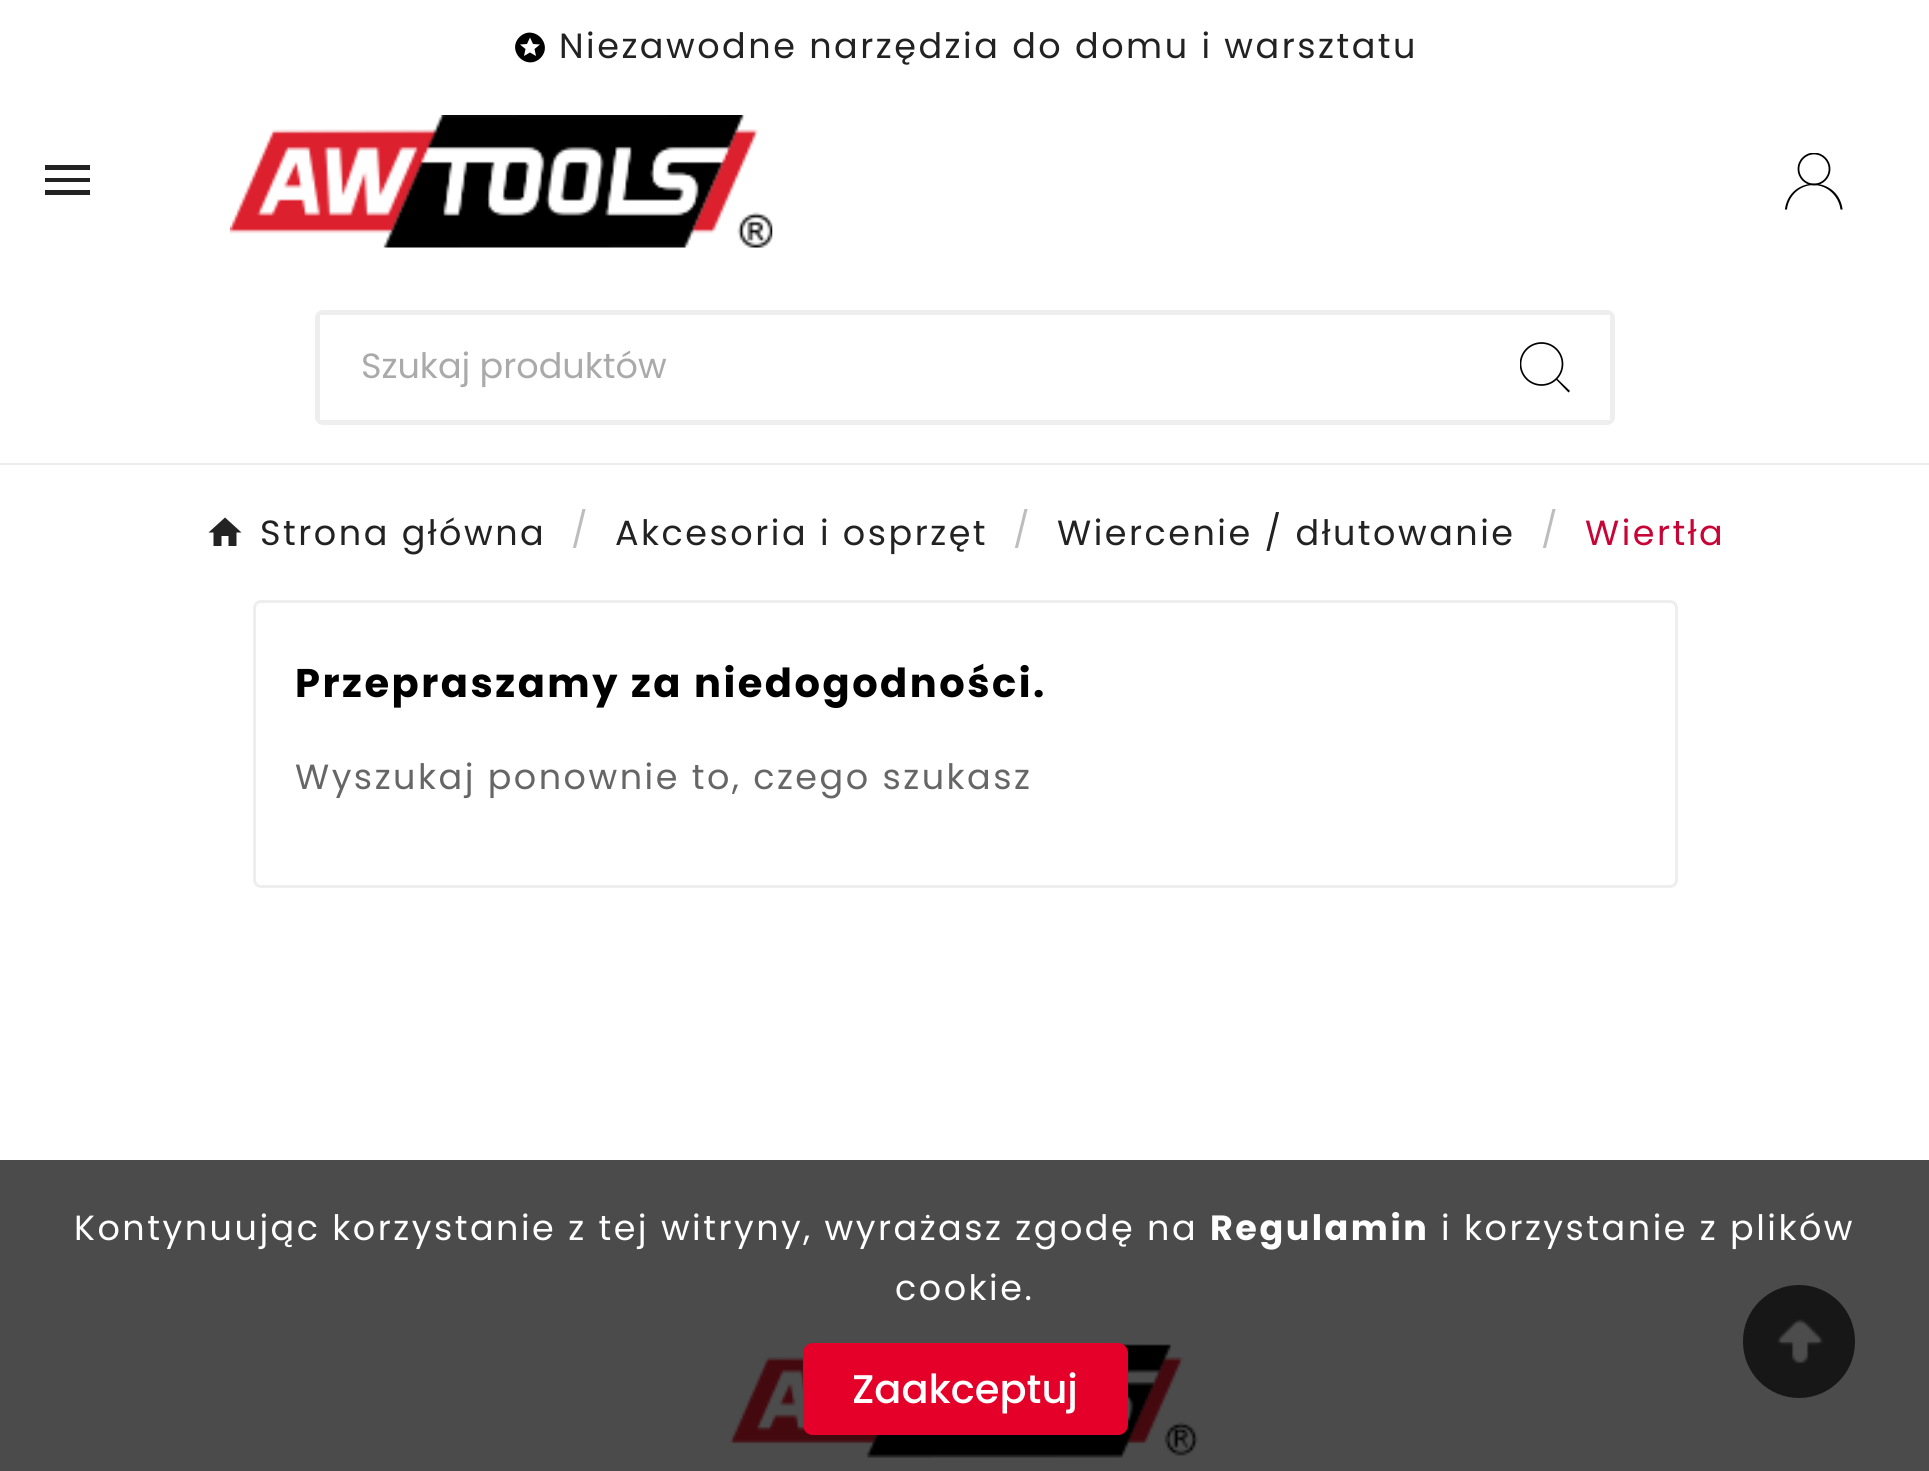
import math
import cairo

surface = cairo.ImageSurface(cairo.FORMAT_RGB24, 1929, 1471)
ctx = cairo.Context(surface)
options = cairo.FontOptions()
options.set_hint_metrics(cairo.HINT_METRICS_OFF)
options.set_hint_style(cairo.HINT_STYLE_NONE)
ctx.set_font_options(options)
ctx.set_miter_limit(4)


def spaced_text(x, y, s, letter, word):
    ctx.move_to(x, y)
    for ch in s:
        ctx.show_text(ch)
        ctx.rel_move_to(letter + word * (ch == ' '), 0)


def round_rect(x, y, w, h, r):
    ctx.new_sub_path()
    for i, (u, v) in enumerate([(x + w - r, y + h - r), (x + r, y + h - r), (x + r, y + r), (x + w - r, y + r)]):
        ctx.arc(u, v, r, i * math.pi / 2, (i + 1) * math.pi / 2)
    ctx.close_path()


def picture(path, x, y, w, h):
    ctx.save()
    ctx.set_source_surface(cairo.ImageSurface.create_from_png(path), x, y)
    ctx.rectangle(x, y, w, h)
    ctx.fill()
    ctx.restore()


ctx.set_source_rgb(0.294, 0.294, 0.294)
ctx.paint()
ctx.set_source_rgb(1, 1, 1)
ctx.rectangle(0, 0, 1929, 463)
ctx.fill()
ctx.set_source_rgb(0.929, 0.929, 0.929)
ctx.rectangle(0, 463, 1929, 2)
ctx.fill()
ctx.set_source_rgb(0, 0, 0)
ctx.new_path()
ctx.move_to(536, 56)
ctx.line_to(534.5, 49)
ctx.line_to(540, 44.5)
ctx.line_to(533, 44)
ctx.line_to(530, 37.5)
ctx.line_to(527, 44)
ctx.line_to(520, 44.5)
ctx.line_to(525.5, 49)
ctx.line_to(524, 56)
ctx.line_to(530, 52.5)
ctx.close_path()
ctx.move_to(519.5, 37)
ctx.curve_to(533.5, 23.5, 554, 44, 540.5, 58)
ctx.curve_to(526.5, 71.5, 506, 51, 519.5, 37)
ctx.close_path()
ctx.fill()
ctx.select_font_face("Poppins")
ctx.set_font_size(35)
ctx.set_source_rgb(0.133, 0.133, 0.133)
spaced_text(559, 58, "Niezawodne narzędzia do domu i warsztatu", 2.5, 0)
ctx.new_path()
ctx.move_to(45, 165)
ctx.line_to(90, 165)
ctx.line_to(90, 170)
ctx.line_to(45, 170)
ctx.close_path()
ctx.move_to(45, 182)
ctx.line_to(45, 178)
ctx.line_to(90, 178)
ctx.line_to(90, 182)
ctx.close_path()
ctx.move_to(45, 195)
ctx.line_to(45, 190)
ctx.line_to(90, 190)
ctx.line_to(90, 195)
ctx.close_path()
ctx.fill()
picture("img1.png", 230, 115, 543, 133)
ctx.new_path()
ctx.move_to(1813.5, 184.5)
ctx.curve_to(1827.5, 184.5, 1839, 195.5, 1841, 209)
ctx.line_to(1842, 209)
ctx.curve_to(1837, 176, 1790.5, 176, 1785.5, 209)
ctx.line_to(1786.5, 209)
ctx.curve_to(1788, 195.5, 1799.5, 184.5, 1813.5, 184.5)
ctx.close_path()
ctx.set_source_rgb(0, 0, 0)
ctx.set_line_width(1.1)
ctx.stroke()
ctx.save()
ctx.rectangle(1785, 153, 58, 57)
ctx.clip()
ctx.arc(1814, 169, 15.5, 0, 2 * math.pi)
ctx.set_line_width(1.8)
ctx.stroke()
ctx.restore()
round_rect(317.5, 312.5, 1295, 110, 5.5)
ctx.set_source_rgb(0.933, 0.933, 0.933)
ctx.set_line_width(5)
ctx.stroke()
ctx.set_source_rgb(1, 1, 1)
ctx.rectangle(320, 315, 2, 105)
ctx.fill()
ctx.set_source_rgb(0.667, 0.667, 0.667)
ctx.move_to(361, 378)
ctx.show_text("Szukaj produktów")
ctx.set_source_rgb(1, 1, 1)
ctx.rectangle(1608, 315, 2, 105)
ctx.fill()
ctx.set_source_rgb(0, 0, 0)
ctx.new_path()
ctx.move_to(1568.5, 392.5)
ctx.line_to(1556, 379.5)
ctx.line_to(1557, 378.5)
ctx.line_to(1570, 391)
ctx.close_path()
ctx.fill()
ctx.save()
ctx.rectangle(1520, 340, 50, 55)
ctx.clip()
ctx.arc(1541.5, 364, 21, 0, 2 * math.pi)
ctx.set_line_width(1.7)
ctx.stroke()
ctx.restore()
ctx.set_source_rgb(1, 1, 1)
ctx.rectangle(0, 465, 1929, 695)
ctx.fill()
ctx.set_source_rgb(0.133, 0.133, 0.133)
spaced_text(260, 545, "Strona główna", 2.5, 0)
ctx.set_source_rgb(0.137, 0.137, 0.137)
ctx.new_path()
ctx.move_to(221.5, 546)
ctx.line_to(213.5, 546)
ctx.line_to(213.5, 532.5)
ctx.line_to(208.5, 532.5)
ctx.line_to(225, 517.5)
ctx.line_to(241.5, 532.5)
ctx.line_to(236.5, 532.5)
ctx.line_to(236.5, 546)
ctx.line_to(228.5, 546)
ctx.line_to(228.5, 536)
ctx.line_to(221.5, 536)
ctx.close_path()
ctx.fill()
ctx.set_source_rgb(0.741, 0.741, 0.741)
spaced_text(571, 542, "/", 2.5, 0)
ctx.set_source_rgb(0.133, 0.133, 0.133)
spaced_text(615, 545, "Akcesoria i osprzęt", 2.5, 0)
ctx.set_source_rgb(0.741, 0.741, 0.741)
spaced_text(1013, 542, "/", 2.5, 0)
ctx.set_source_rgb(0.133, 0.133, 0.133)
spaced_text(1057, 545, "Wiercenie / dłutowanie", 2.5, 0)
ctx.set_source_rgb(0.741, 0.741, 0.741)
spaced_text(1541, 542, "/", 2.5, 0)
ctx.set_source_rgb(0.784, 0.016, 0.212)
spaced_text(1585, 545, "Wiertła", 2.5, 0)
round_rect(254.5, 601.5, 1422, 285, 6.5)
ctx.set_source_rgb(0.933, 0.933, 0.933)
ctx.set_line_width(3)
ctx.stroke()
ctx.select_font_face("Poppins", cairo.FONT_SLANT_NORMAL, cairo.FONT_WEIGHT_BOLD)
ctx.set_font_size(40)
ctx.set_source_rgb(0, 0, 0)
spaced_text(295, 697, "Przepraszamy za niedogodności.", 2.5, 0)
ctx.select_font_face("Poppins")
ctx.set_font_size(35)
ctx.set_source_rgb(0.4, 0.4, 0.4)
spaced_text(295, 789, "Wyszukaj ponownie to, czego szukasz", 2.5, 0)
picture("img2.png", 729, 1344, 470, 114)
ctx.set_source_rgb(0.09, 0.09, 0.09)
round_rect(1743, 1285, 112, 113, 56)
ctx.fill()
picture("img3.png", 1777, 1319, 47, 45)
ctx.set_source_rgb(1, 1, 1)
spaced_text(74, 1240, "Kontynuując korzystanie z tej witryny, wyrażasz zgodę na", 2.5, 0)
ctx.select_font_face("Poppins", cairo.FONT_SLANT_NORMAL, cairo.FONT_WEIGHT_BOLD)
spaced_text(1210, 1240, "Regulamin", 2.5, 0)
ctx.select_font_face("Poppins")
spaced_text(1441, 1240, "i korzystanie z plików", 2.5, 0)
spaced_text(895, 1300, "cookie.", 2.5, 0)
ctx.set_source_rgb(0.898, 0, 0.161)
round_rect(803, 1343, 325, 92, 10)
ctx.fill()
ctx.select_font_face("Poppins Medium")
ctx.set_font_size(40)
ctx.set_source_rgb(1, 1, 1)
ctx.move_to(852, 1403)
ctx.show_text("Zaakceptuj")
surface.write_to_png("page.png")
